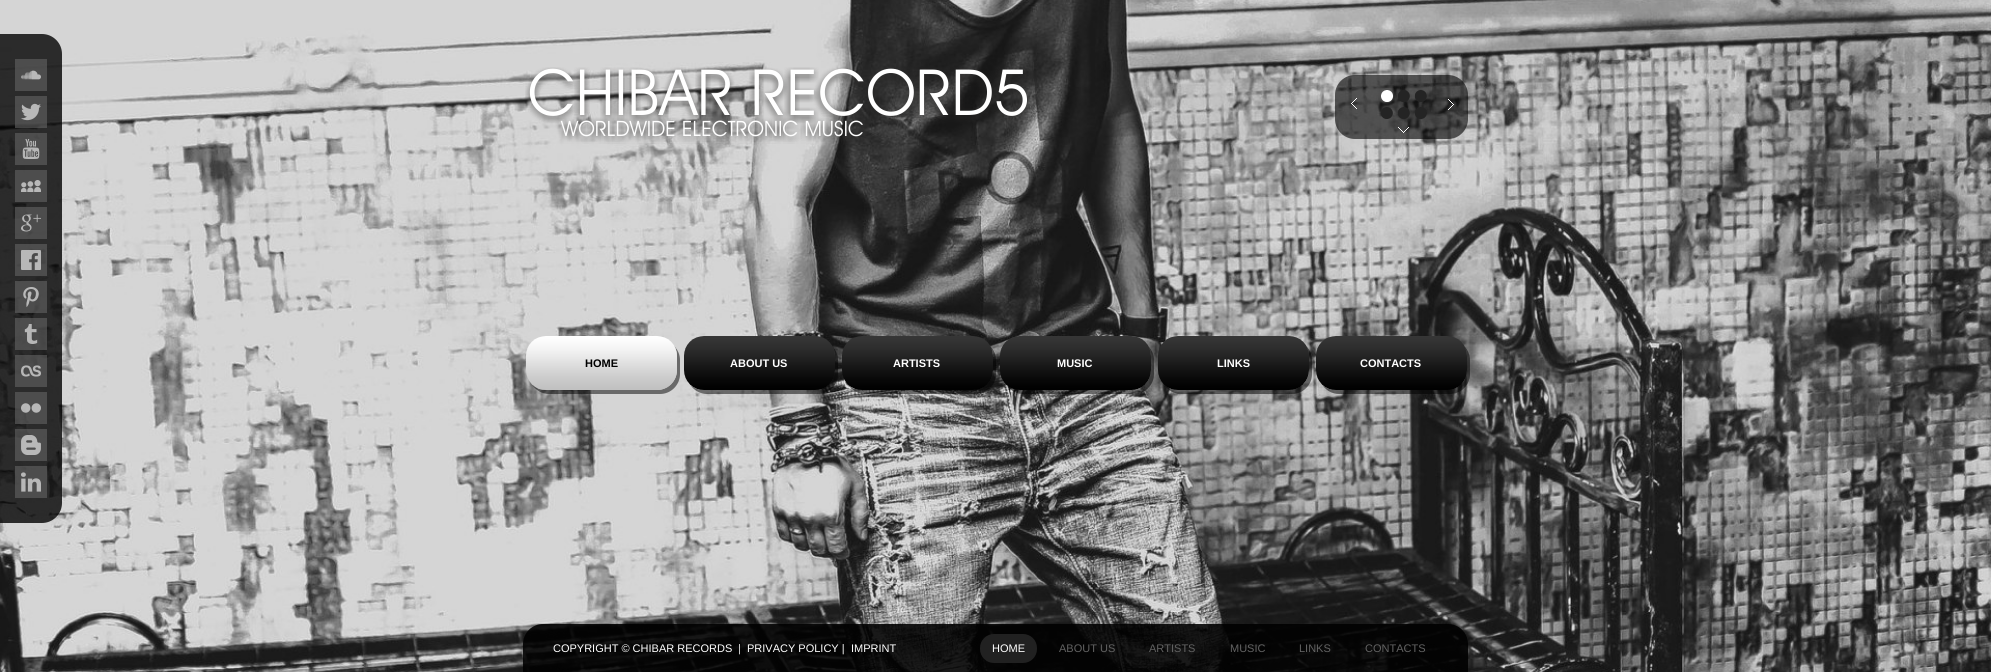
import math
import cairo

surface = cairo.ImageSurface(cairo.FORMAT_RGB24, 1991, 672)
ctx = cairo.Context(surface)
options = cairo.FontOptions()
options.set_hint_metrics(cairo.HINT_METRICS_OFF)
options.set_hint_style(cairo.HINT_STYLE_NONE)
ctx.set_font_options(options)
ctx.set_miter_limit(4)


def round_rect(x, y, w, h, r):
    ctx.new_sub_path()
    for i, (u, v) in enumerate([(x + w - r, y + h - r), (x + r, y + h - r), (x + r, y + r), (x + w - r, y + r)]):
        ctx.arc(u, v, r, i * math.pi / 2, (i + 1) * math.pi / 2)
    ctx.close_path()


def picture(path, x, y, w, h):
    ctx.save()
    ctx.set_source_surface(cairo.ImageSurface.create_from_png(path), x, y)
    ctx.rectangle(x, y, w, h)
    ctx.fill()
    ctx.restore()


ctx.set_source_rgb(1, 1, 1)
ctx.paint()
picture("img1.png", 0, 0, 1991, 672)
picture("img2.png", 525, 67, 505, 77)
ctx.set_source_rgba(0, 0, 0, 0.6)
round_rect(1335, 75, 133, 64, 20)
ctx.fill()
picture("img3.png", 1381, 90, 13, 12)
picture("img4.png", 1398, 90, 12, 12)
picture("img5.png", 1415, 90, 12, 12)
picture("img6.png", 1351, 98, 6, 11)
picture("img7.png", 1448, 99, 6, 11)
picture("img8.png", 1381, 107, 12, 12)
picture("img9.png", 1398, 107, 12, 12)
picture("img10.png", 1415, 107, 12, 12)
picture("img11.png", 1398, 127, 11, 6)
ctx.set_source_rgba(0, 0, 0, 0.8)
ctx.new_path()
ctx.move_to(0, 34)
ctx.line_to(42, 34)
ctx.curve_to(53, 34, 62, 43, 62, 54)
ctx.line_to(62, 503)
ctx.curve_to(62, 514, 53, 523, 42, 523)
ctx.line_to(0, 523)
ctx.close_path()
ctx.fill()
ctx.set_source_rgba(0.396, 0.396, 0.396, 0.6)
ctx.rectangle(15, 59, 32, 32)
ctx.fill()
picture("img12.png", 21, 70, 20, 10)
ctx.rectangle(15, 96, 32, 32)
ctx.fill()
picture("img13.png", 21, 103, 20, 18)
ctx.rectangle(15, 133, 32, 32)
ctx.fill()
picture("img14.png", 22, 139, 18, 20)
ctx.rectangle(15, 170, 32, 32)
ctx.fill()
picture("img15.png", 21, 180, 20, 12)
ctx.rectangle(15, 207, 32, 32)
ctx.fill()
picture("img16.png", 21, 214, 20, 18)
ctx.rectangle(15, 244, 32, 32)
ctx.fill()
picture("img17.png", 21, 250, 20, 20)
ctx.rectangle(15, 281, 32, 32)
ctx.fill()
picture("img18.png", 23, 287, 16, 20)
ctx.rectangle(15, 318, 32, 32)
ctx.fill()
picture("img19.png", 24, 324, 14, 20)
ctx.rectangle(15, 355, 32, 32)
ctx.fill()
picture("img20.png", 21, 365, 20, 12)
ctx.rectangle(15, 392, 32, 32)
ctx.fill()
picture("img21.png", 21, 403, 20, 10)
ctx.rectangle(15, 429, 32, 32)
ctx.fill()
picture("img22.png", 21, 435, 20, 20)
ctx.rectangle(15, 466, 32, 32)
ctx.fill()
picture("img23.png", 21, 472, 20, 20)
ctx.set_source_rgba(0, 0, 0, 0.5)
ctx.new_path()
ctx.move_to(532, 384)
ctx.curve_to(535, 390, 542, 394, 549, 394)
ctx.line_to(660, 394)
ctx.curve_to(671, 394, 680, 385, 680, 374)
ctx.line_to(680, 360)
ctx.curve_to(680, 355, 678, 350, 674, 346)
ctx.curve_to(676, 349, 677, 352, 677, 356)
ctx.line_to(677, 370)
ctx.curve_to(677, 381, 668, 390, 657, 390)
ctx.line_to(546, 390)
ctx.curve_to(540, 390, 535, 388, 532, 384)
ctx.close_path()
ctx.fill()
picture("img24.png", 526, 336, 151, 54)
ctx.select_font_face("Liberation Sans", cairo.FONT_SLANT_NORMAL, cairo.FONT_WEIGHT_BOLD)
ctx.set_font_size(11)
ctx.set_source_rgb(0, 0, 0)
ctx.move_to(585, 367)
ctx.show_text("HOME")
ctx.set_source_rgba(0, 0, 0, 0.5)
ctx.new_path()
ctx.move_to(690, 384)
ctx.curve_to(693, 390, 700, 394, 707, 394)
ctx.line_to(818, 394)
ctx.curve_to(829, 394, 838, 385, 838, 374)
ctx.line_to(838, 360)
ctx.curve_to(838, 355, 836, 350, 832, 346)
ctx.curve_to(834, 349, 835, 352, 835, 356)
ctx.line_to(835, 370)
ctx.curve_to(835, 381, 826, 390, 815, 390)
ctx.line_to(704, 390)
ctx.curve_to(698, 390, 693, 388, 690, 384)
ctx.close_path()
ctx.fill()
picture("img25.png", 684, 336, 151, 54)
ctx.set_source_rgb(1, 1, 1)
ctx.move_to(730, 367)
ctx.show_text("ABOUT US")
ctx.set_source_rgba(0, 0, 0, 0.5)
ctx.new_path()
ctx.move_to(848, 384)
ctx.curve_to(851, 390, 858, 394, 865, 394)
ctx.line_to(976, 394)
ctx.curve_to(987, 394, 996, 385, 996, 374)
ctx.line_to(996, 360)
ctx.curve_to(996, 355, 994, 350, 990, 346)
ctx.curve_to(992, 349, 993, 352, 993, 356)
ctx.line_to(993, 370)
ctx.curve_to(993, 381, 984, 390, 973, 390)
ctx.line_to(862, 390)
ctx.curve_to(856, 390, 851, 388, 848, 384)
ctx.close_path()
ctx.fill()
picture("img26.png", 842, 336, 151, 54)
ctx.set_source_rgb(1, 1, 1)
ctx.move_to(893, 367)
ctx.show_text("ARTISTS")
ctx.set_source_rgba(0, 0, 0, 0.5)
ctx.new_path()
ctx.move_to(1006, 384)
ctx.curve_to(1009, 390, 1016, 394, 1023, 394)
ctx.line_to(1134, 394)
ctx.curve_to(1145, 394, 1154, 385, 1154, 374)
ctx.line_to(1154, 360)
ctx.curve_to(1154, 355, 1152, 350, 1148, 346)
ctx.curve_to(1150, 349, 1151, 352, 1151, 356)
ctx.line_to(1151, 370)
ctx.curve_to(1151, 381, 1142, 390, 1131, 390)
ctx.line_to(1020, 390)
ctx.curve_to(1014, 390, 1009, 388, 1006, 384)
ctx.close_path()
ctx.fill()
picture("img27.png", 1000, 336, 151, 54)
ctx.set_source_rgb(1, 1, 1)
ctx.move_to(1057, 367)
ctx.show_text("MUSIC")
ctx.set_source_rgba(0, 0, 0, 0.5)
ctx.new_path()
ctx.move_to(1164, 384)
ctx.curve_to(1167, 390, 1174, 394, 1181, 394)
ctx.line_to(1292, 394)
ctx.curve_to(1303, 394, 1312, 385, 1312, 374)
ctx.line_to(1312, 360)
ctx.curve_to(1312, 355, 1310, 350, 1306, 346)
ctx.curve_to(1308, 349, 1309, 352, 1309, 356)
ctx.line_to(1309, 370)
ctx.curve_to(1309, 381, 1300, 390, 1289, 390)
ctx.line_to(1178, 390)
ctx.curve_to(1172, 390, 1167, 388, 1164, 384)
ctx.close_path()
ctx.fill()
picture("img28.png", 1158, 336, 151, 54)
ctx.set_source_rgb(1, 1, 1)
ctx.move_to(1217, 367)
ctx.show_text("LINKS")
ctx.set_source_rgba(0, 0, 0, 0.5)
ctx.new_path()
ctx.move_to(1322, 384)
ctx.curve_to(1325, 390, 1332, 394, 1339, 394)
ctx.line_to(1450, 394)
ctx.curve_to(1461, 394, 1470, 385, 1470, 374)
ctx.line_to(1470, 360)
ctx.curve_to(1470, 355, 1468, 350, 1464, 346)
ctx.curve_to(1466, 349, 1467, 352, 1467, 356)
ctx.line_to(1467, 370)
ctx.curve_to(1467, 381, 1458, 390, 1447, 390)
ctx.line_to(1336, 390)
ctx.curve_to(1330, 390, 1325, 388, 1322, 384)
ctx.close_path()
ctx.fill()
picture("img29.png", 1316, 336, 151, 54)
ctx.set_source_rgb(1, 1, 1)
ctx.move_to(1360, 367)
ctx.show_text("CONTACTS")
ctx.set_source_rgba(0, 0, 0, 0.88)
ctx.new_path()
ctx.move_to(543, 624)
ctx.line_to(1448, 624)
ctx.curve_to(1459, 624, 1468, 633, 1468, 644)
ctx.line_to(1468, 672)
ctx.line_to(523, 672)
ctx.line_to(523, 644)
ctx.curve_to(523, 633, 532, 624, 543, 624)
ctx.close_path()
ctx.fill()
ctx.select_font_face("Liberation Sans")
ctx.set_source_rgb(1, 1, 1)
ctx.move_to(553, 652)
ctx.show_text("COPYRIGHT © CHIBAR RECORDS  |")
ctx.move_to(747, 652)
ctx.show_text("PRIVACY POLICY |")
ctx.move_to(851, 652)
ctx.show_text("IMPRINT")
ctx.set_source_rgb(0.129, 0.129, 0.129)
round_rect(980, 634, 57, 29, 14)
ctx.fill()
ctx.set_source_rgb(1, 1, 1)
ctx.move_to(992, 652)
ctx.show_text("HOME")
ctx.set_source_rgb(0.384, 0.384, 0.384)
ctx.move_to(1059, 652)
ctx.show_text("ABOUT US")
ctx.move_to(1149, 652)
ctx.show_text("ARTISTS")
ctx.move_to(1230, 652)
ctx.show_text("MUSIC")
ctx.move_to(1299, 652)
ctx.show_text("LINKS")
ctx.move_to(1365, 652)
ctx.show_text("CONTACTS")
surface.write_to_png("page.png")
